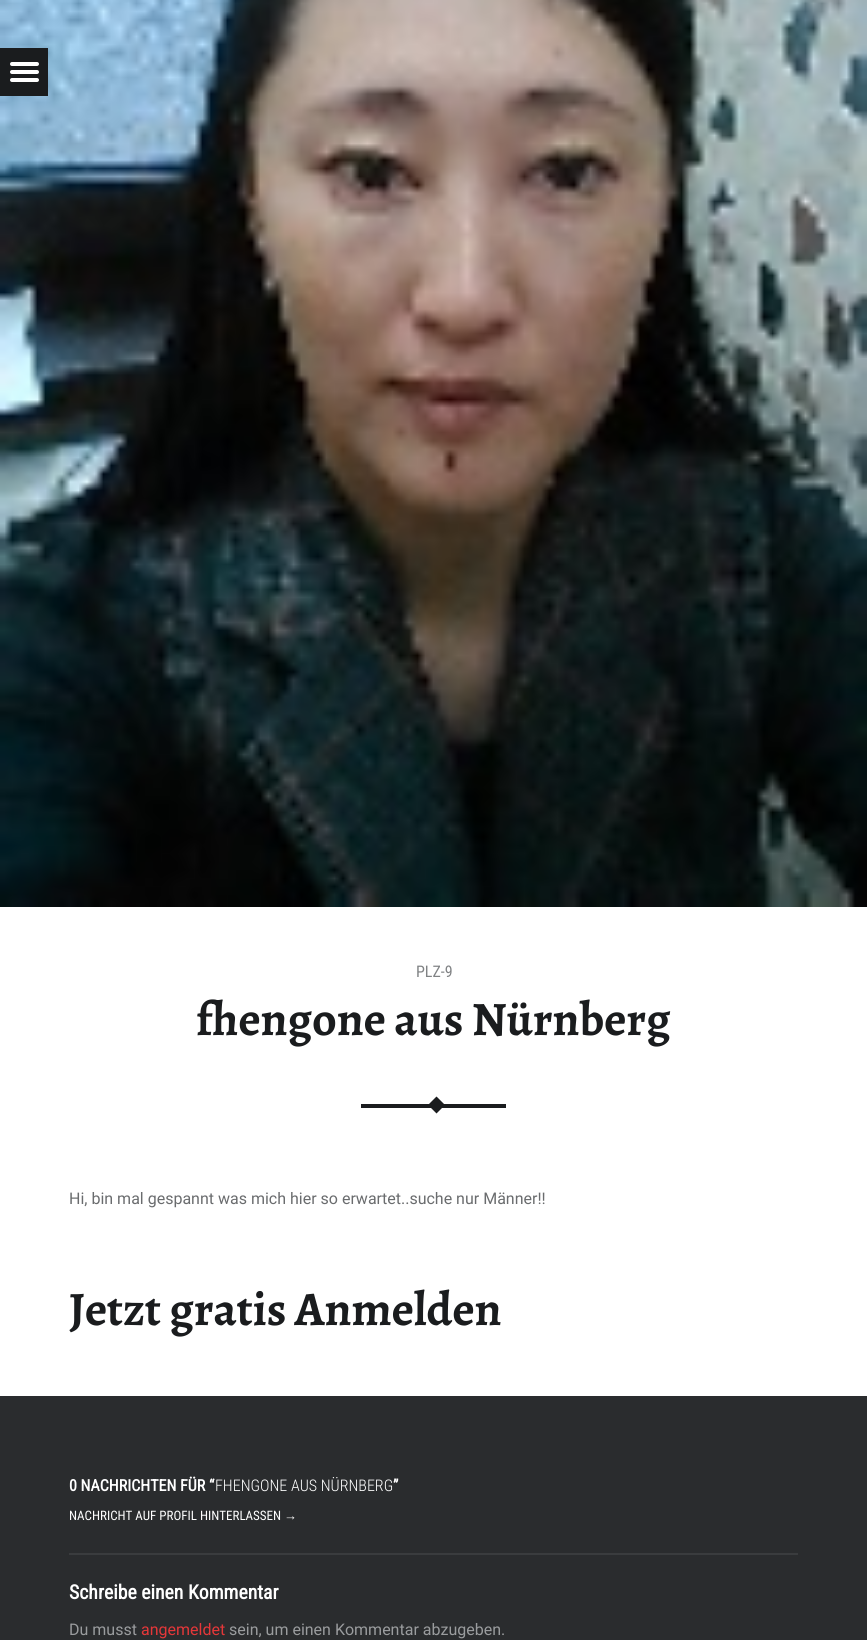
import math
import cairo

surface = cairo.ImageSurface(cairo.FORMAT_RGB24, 867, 1640)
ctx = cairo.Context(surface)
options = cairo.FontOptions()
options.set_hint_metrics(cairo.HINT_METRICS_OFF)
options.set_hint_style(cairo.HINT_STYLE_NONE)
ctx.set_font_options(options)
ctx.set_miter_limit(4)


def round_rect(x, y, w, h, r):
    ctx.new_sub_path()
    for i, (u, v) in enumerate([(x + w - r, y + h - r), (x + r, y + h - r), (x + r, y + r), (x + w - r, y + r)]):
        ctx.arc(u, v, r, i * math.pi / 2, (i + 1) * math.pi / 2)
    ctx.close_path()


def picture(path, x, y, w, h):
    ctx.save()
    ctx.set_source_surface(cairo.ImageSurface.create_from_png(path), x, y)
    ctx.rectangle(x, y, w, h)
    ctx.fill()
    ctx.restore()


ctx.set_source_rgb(1, 1, 1)
ctx.paint()
picture("img1.png", 0, 0, 867, 907)
ctx.set_source_rgb(0.102, 0.11, 0.118)
ctx.rectangle(0, 48, 48, 48)
ctx.fill()
ctx.set_source_rgb(1, 1, 1)
round_rect(10, 62, 29, 4, 2)
ctx.fill()
round_rect(10, 70, 29, 4, 2)
ctx.fill()
round_rect(10, 78, 29, 4, 2)
ctx.fill()
ctx.select_font_face("Roboto Condensed")
ctx.set_font_size(16)
ctx.set_source_rgb(0.502, 0.51, 0.518)
ctx.move_to(416, 977)
ctx.show_text("PLZ-9")
ctx.select_font_face("Alegreya", cairo.FONT_SLANT_NORMAL, cairo.FONT_WEIGHT_BOLD)
ctx.set_font_size(48)
ctx.set_source_rgb(0.102, 0.11, 0.118)
ctx.move_to(196, 1035)
ctx.show_text("fhengone aus Nürnberg")
ctx.rectangle(361, 1104, 145, 4)
ctx.fill()
ctx.new_path()
ctx.move_to(436.5, 1096.5)
ctx.line_to(445, 1105)
ctx.line_to(436.5, 1113.5)
ctx.line_to(428, 1105)
ctx.close_path()
ctx.fill()
ctx.select_font_face("Roboto")
ctx.set_font_size(16)
ctx.set_source_rgb(0.416, 0.424, 0.431)
ctx.move_to(69, 1204)
ctx.show_text("Hi, bin mal gespannt was mich hier so erwartet..suche nur Männer!!")
ctx.select_font_face("Alegreya", cairo.FONT_SLANT_NORMAL, cairo.FONT_WEIGHT_BOLD)
ctx.set_font_size(48)
ctx.set_source_rgb(0.102, 0.11, 0.118)
ctx.move_to(69, 1325)
ctx.show_text("Jetzt gratis Anmelden")
ctx.set_source_rgb(0.165, 0.173, 0.18)
ctx.rectangle(0, 1396, 867, 244)
ctx.fill()
ctx.select_font_face("Roboto Condensed", cairo.FONT_SLANT_NORMAL, cairo.FONT_WEIGHT_BOLD)
ctx.set_font_size(16)
ctx.set_source_rgb(1, 1, 1)
ctx.move_to(69, 1491)
ctx.show_text("0 NACHRICHTEN FÜR “")
ctx.select_font_face("Roboto Condensed Light")
ctx.move_to(215, 1491)
ctx.show_text("FHENGONE AUS NÜRNBERG")
ctx.select_font_face("Roboto Condensed", cairo.FONT_SLANT_NORMAL, cairo.FONT_WEIGHT_BOLD)
ctx.move_to(393, 1491)
ctx.show_text("”")
ctx.select_font_face("Roboto Condensed")
ctx.set_font_size(13)
ctx.move_to(69, 1520)
ctx.show_text("NACHRICHT AUF PROFIL HINTERLASSEN")
ctx.select_font_face("Liberation Sans")
ctx.move_to(284, 1520)
ctx.show_text("→")
ctx.set_source_rgb(0.227, 0.235, 0.243)
ctx.rectangle(69, 1553, 729, 2)
ctx.fill()
ctx.select_font_face("Roboto Condensed", cairo.FONT_SLANT_NORMAL, cairo.FONT_WEIGHT_BOLD)
ctx.set_font_size(19.75)
ctx.set_source_rgb(1, 1, 1)
ctx.move_to(69, 1599)
ctx.show_text("Schreibe einen Kommentar")
ctx.select_font_face("Roboto")
ctx.set_font_size(16)
ctx.set_source_rgb(0.604, 0.612, 0.62)
ctx.move_to(69, 1635)
ctx.show_text("Du musst")
ctx.set_source_rgb(0.898, 0.216, 0.224)
ctx.move_to(141, 1635)
ctx.show_text("angemeldet")
ctx.set_source_rgb(0.604, 0.612, 0.62)
ctx.move_to(229, 1635)
ctx.show_text("sein, um einen Kommentar abzugeben.")
surface.write_to_png("page.png")
